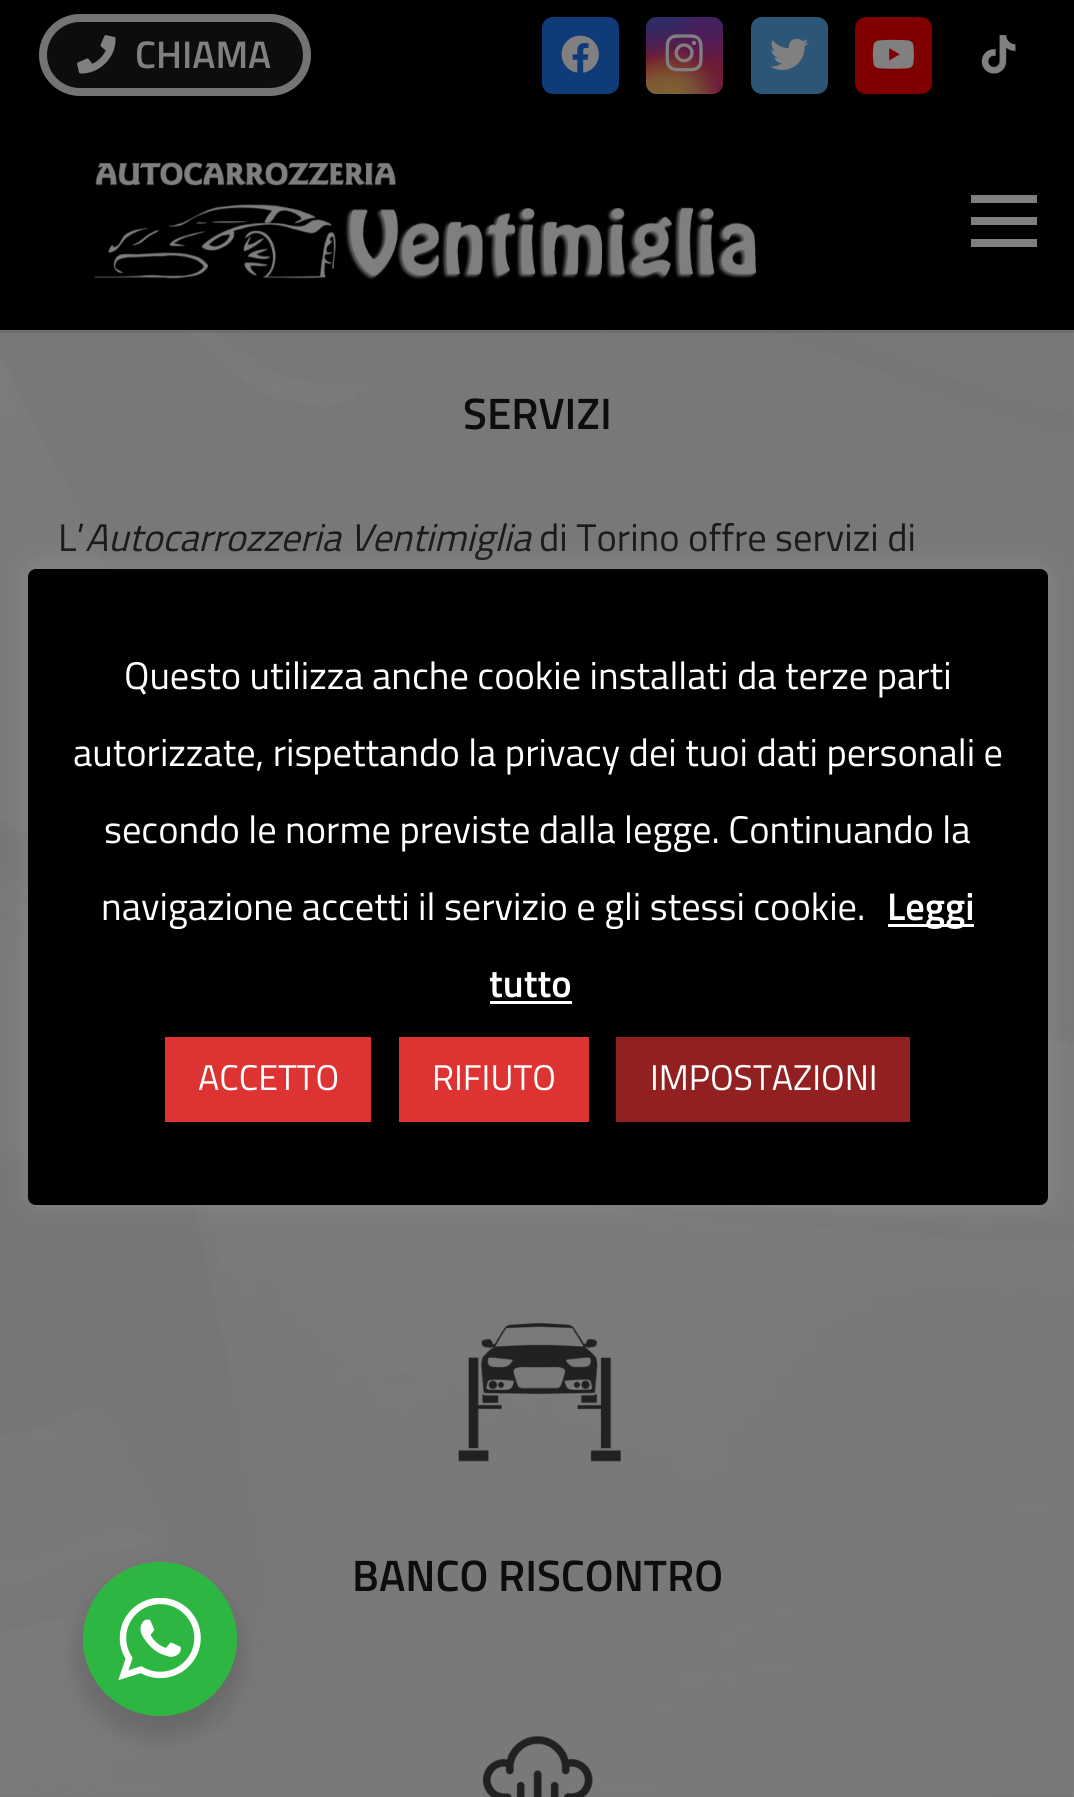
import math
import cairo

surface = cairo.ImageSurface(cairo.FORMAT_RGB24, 1074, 1797)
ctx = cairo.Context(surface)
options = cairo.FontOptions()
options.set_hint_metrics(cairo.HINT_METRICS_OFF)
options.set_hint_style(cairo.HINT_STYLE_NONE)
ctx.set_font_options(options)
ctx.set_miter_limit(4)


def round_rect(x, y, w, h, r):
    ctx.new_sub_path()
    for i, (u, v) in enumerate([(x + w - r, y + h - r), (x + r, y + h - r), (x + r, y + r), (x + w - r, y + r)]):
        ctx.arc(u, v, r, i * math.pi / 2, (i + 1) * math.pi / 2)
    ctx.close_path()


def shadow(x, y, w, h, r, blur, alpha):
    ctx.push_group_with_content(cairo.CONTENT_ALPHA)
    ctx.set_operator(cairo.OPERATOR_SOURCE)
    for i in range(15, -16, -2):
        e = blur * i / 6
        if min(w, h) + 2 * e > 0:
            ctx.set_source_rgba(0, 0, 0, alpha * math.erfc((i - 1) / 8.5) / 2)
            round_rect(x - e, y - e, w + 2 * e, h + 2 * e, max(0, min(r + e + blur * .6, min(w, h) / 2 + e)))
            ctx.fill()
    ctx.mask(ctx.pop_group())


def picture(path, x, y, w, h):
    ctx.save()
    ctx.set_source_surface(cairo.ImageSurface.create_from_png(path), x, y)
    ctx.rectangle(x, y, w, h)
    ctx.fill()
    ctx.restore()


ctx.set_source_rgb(1, 1, 1)
ctx.paint()
ctx.set_source_rgb(0, 0, 0)
ctx.rectangle(0, 0, 1074, 330)
ctx.fill()
ctx.set_source_rgb(0.051, 0.051, 0.051)
round_rect(39, 14, 272, 82, 41)
ctx.fill()
picture("img1.png", 77, 35, 39, 39)
round_rect(43, 18, 264, 74, 37)
ctx.set_source_rgb(0.455, 0.455, 0.455)
ctx.set_line_width(8)
ctx.stroke()
ctx.select_font_face("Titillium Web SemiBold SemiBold")
ctx.set_font_size(38.5)
ctx.set_source_rgb(0.502, 0.502, 0.502)
ctx.move_to(135, 68)
ctx.show_text("CHIAMA")
ctx.set_source_rgb(0.059, 0.235, 0.471)
round_rect(542, 17, 77, 77, 11)
ctx.fill()
picture("img2.png", 561, 35, 38, 38)
gradient = cairo.LinearGradient(685, 16, 685, 94)
gradient.add_color_stop_rgba(0, 0.2, 0.176, 0.396, 1)
gradient.add_color_stop_rgba(0.3, 0.369, 0.098, 0.282, 1)
gradient.add_color_stop_rgba(0.5, 0.447, 0.09, 0.2, 1)
gradient.add_color_stop_rgba(0.7, 0.49, 0.165, 0.098, 1)
gradient.add_color_stop_rgba(1, 0.502, 0.431, 0.251, 1)
ctx.set_source(gradient)
round_rect(646, 17, 77, 77, 11)
ctx.fill()
gradient = cairo.RadialGradient(723, 94, 0, 723, 94, 109)
gradient.add_color_stop_rgba(0, 0.427, 0.098, 0.239, 1)
gradient.add_color_stop_rgba(1, 0.427, 0.098, 0.239, 0)
ctx.set_source(gradient)
round_rect(646, 17, 77, 77, 11)
ctx.fill()
gradient = cairo.RadialGradient(0, 0, 0, 0, 0, 1)
gradient.set_matrix(cairo.Matrix(1 / 65, 0, 0, 1 / 131, -1 * 692 / 65, -1 * 1.1 / 131))
gradient.add_color_stop_rgba(0, 0.271, 0.122, 0.38, 1)
gradient.add_color_stop_rgba(0.5, 0.271, 0.122, 0.38, 0)
ctx.set_source(gradient)
round_rect(646, 17, 77, 77, 11)
ctx.fill()
gradient = cairo.RadialGradient(723, 17, 0, 723, 17, 109)
gradient.add_color_stop_rgba(0, 0.271, 0.122, 0.38, 1)
gradient.add_color_stop_rgba(0.5, 0.271, 0.122, 0.38, 0)
ctx.set_source(gradient)
round_rect(646, 17, 77, 77, 11)
ctx.fill()
gradient = cairo.RadialGradient(0, 0, 0, 0, 0, 1)
gradient.set_matrix(cairo.Matrix(1 / 87, 0, 0, 1 / 163, -1 * 662 / 87, -1 * -22 / 163))
gradient.add_color_stop_rgba(0, 0.161, 0.173, 0.408, 1)
gradient.add_color_stop_rgba(0.5, 0.161, 0.173, 0.408, 0)
ctx.set_source(gradient)
round_rect(646, 17, 77, 77, 11)
ctx.fill()
gradient = cairo.RadialGradient(0, 0, 0, 0, 0, 1)
gradient.set_matrix(cairo.Matrix(1 / 109, 0, 0, 1 / 136, -1 * 646 / 109, -1 * -2.8 / 136))
gradient.add_color_stop_rgba(0, 0.161, 0.173, 0.408, 1)
gradient.add_color_stop_rgba(0.5, 0.161, 0.173, 0.408, 0)
ctx.set_source(gradient)
round_rect(646, 17, 77, 77, 11)
ctx.fill()
gradient = cairo.RadialGradient(654, 124, 0, 654, 124, 128)
gradient.add_color_stop_rgba(0, 0.498, 0.427, 0.247, 1)
gradient.add_color_stop_rgba(0.5, 0.498, 0.427, 0.247, 0)
ctx.set_source(gradient)
round_rect(646, 17, 77, 77, 11)
ctx.fill()
gradient = cairo.RadialGradient(673, 94, 0, 673, 94, 92)
gradient.add_color_stop_rgba(0, 0.498, 0.388, 0.196, 1)
gradient.add_color_stop_rgba(0.5, 0.498, 0.388, 0.196, 0)
ctx.set_source(gradient)
round_rect(646, 17, 77, 77, 11)
ctx.fill()
picture("img3.png", 665, 34, 38, 38)
ctx.set_source_rgb(0.169, 0.337, 0.467)
round_rect(751, 17, 77, 77, 11)
ctx.fill()
picture("img4.png", 770, 38, 39, 32)
ctx.set_source_rgb(0.502, 0, 0)
round_rect(855, 17, 77, 77, 11)
ctx.fill()
picture("img5.png", 872, 39, 42, 30)
picture("img6.png", 981, 35, 35, 39)
picture("img8.png", 0, 330, 1074, 1467)
ctx.set_source_rgba(0, 0, 0, 0.08)
ctx.rectangle(0, 330, 1074, 3)
ctx.fill()
picture("img7.png", 94, 162, 663, 118)
ctx.set_source_rgb(0.502, 0.502, 0.502)
ctx.rectangle(971, 217, 66, 8)
ctx.fill()
ctx.rectangle(971, 195, 66, 8)
ctx.fill()
ctx.rectangle(971, 239, 66, 8)
ctx.fill()
ctx.set_font_size(44)
ctx.set_source_rgb(0.051, 0.051, 0.051)
ctx.move_to(463, 429)
ctx.show_text("SERVIZI")
ctx.select_font_face("Titillium Web")
ctx.set_font_size(38.5)
ctx.set_source_rgb(0.102, 0.102, 0.102)
ctx.move_to(58, 551)
ctx.show_text("L’")
ctx.select_font_face("Titillium Web", cairo.FONT_SLANT_ITALIC)
ctx.move_to(85, 551)
ctx.show_text("Autocarrozzeria Ventimiglia")
ctx.select_font_face("Titillium Web")
ctx.move_to(539, 551)
ctx.show_text("di Torino offre servizi di")
picture("img9.png", 458, 1323, 163, 139)
ctx.select_font_face("Titillium Web SemiBold SemiBold")
ctx.set_font_size(44)
ctx.set_source_rgb(0.051, 0.051, 0.051)
ctx.move_to(352, 1591)
ctx.show_text("BANCO RISCONTRO")
picture("img10.png", 482, 1735, 111, 62)
ctx.set_source_rgb(0.675, 0.671, 0.671)
shadow(28, 567, 1020, 635, 8, 14, 0.3)
ctx.set_source_rgb(0, 0, 0)
round_rect(28, 569, 1020, 636, 8)
ctx.fill()
ctx.select_font_face("Titillium Web")
ctx.set_font_size(38.5)
ctx.set_source_rgb(1, 1, 1)
ctx.move_to(124, 689)
ctx.show_text("Questo utilizza anche cookie installati da terze parti")
ctx.move_to(73, 766)
ctx.show_text("autorizzate, rispettando la privacy dei tuoi dati personali e")
ctx.move_to(104, 843)
ctx.show_text("secondo le norme previste dalla legge. Continuando la")
ctx.move_to(101, 920)
ctx.show_text("navigazione accetti il servizio e gli stessi cookie.")
ctx.rectangle(888, 924, 86, 3)
ctx.fill()
ctx.select_font_face("Titillium Web SemiBold SemiBold")
ctx.move_to(887, 920)
ctx.show_text("Leggi")
ctx.move_to(489, 997)
ctx.show_text("tutto")
ctx.rectangle(490, 1001, 82, 3)
ctx.fill()
ctx.set_source_rgb(0.867, 0.2, 0.2)
ctx.rectangle(165, 1037, 206, 85)
ctx.fill()
ctx.select_font_face("Titillium Web")
ctx.set_font_size(35.75)
ctx.set_source_rgb(1, 1, 1)
ctx.move_to(198, 1090)
ctx.show_text("ACCETTO")
ctx.set_source_rgb(0.867, 0.2, 0.2)
ctx.rectangle(399, 1037, 190, 85)
ctx.fill()
ctx.set_source_rgb(1, 1, 1)
ctx.move_to(432, 1090)
ctx.show_text("RIFIUTO")
ctx.set_source_rgb(0.576, 0.125, 0.125)
ctx.rectangle(616, 1037, 294, 85)
ctx.fill()
ctx.set_source_rgb(1, 1, 1)
ctx.move_to(650, 1090)
ctx.show_text("IMPOSTAZIONI")
ctx.set_source_rgb(0, 0, 0)
shadow(77, 1573, 165, 165, 82.5, 11, 0.14)
ctx.set_source_rgb(0.176, 0.718, 0.259)
ctx.arc(160, 1639, 77, 0, 2 * math.pi)
ctx.fill()
picture("img11.png", 118, 1598, 83, 82)
surface.write_to_png("page.png")
